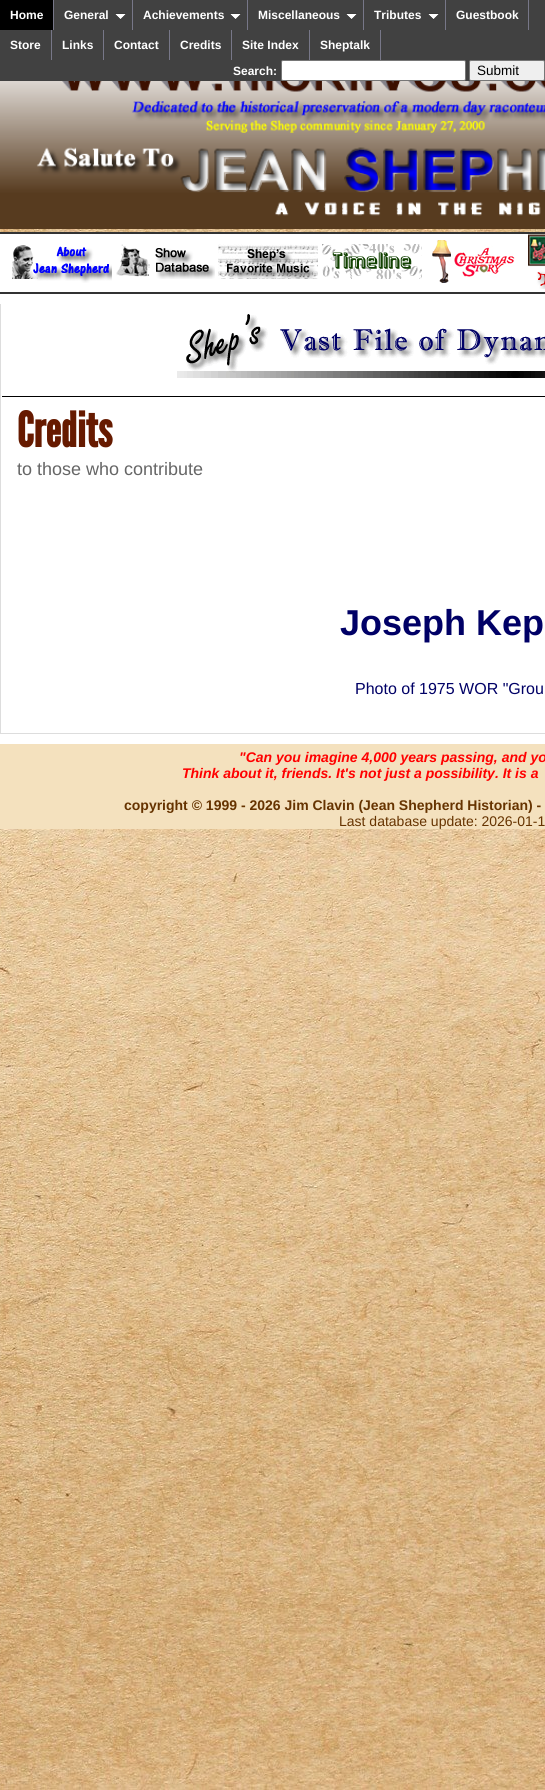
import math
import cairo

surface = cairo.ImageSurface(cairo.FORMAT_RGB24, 545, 1790)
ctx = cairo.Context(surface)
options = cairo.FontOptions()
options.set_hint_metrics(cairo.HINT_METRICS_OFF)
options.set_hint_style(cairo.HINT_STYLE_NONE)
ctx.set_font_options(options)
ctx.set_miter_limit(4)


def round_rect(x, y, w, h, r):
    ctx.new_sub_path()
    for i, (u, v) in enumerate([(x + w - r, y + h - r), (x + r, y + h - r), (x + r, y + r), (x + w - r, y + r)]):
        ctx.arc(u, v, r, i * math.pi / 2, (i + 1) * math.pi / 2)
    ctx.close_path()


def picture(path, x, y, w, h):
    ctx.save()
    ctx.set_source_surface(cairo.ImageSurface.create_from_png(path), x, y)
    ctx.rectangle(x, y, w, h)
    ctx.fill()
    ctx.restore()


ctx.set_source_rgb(1, 1, 1)
ctx.paint()
picture("img1.png", 0, 229, 545, 1561)
ctx.set_source_rgb(0.255, 0.255, 0.255)
ctx.rectangle(0, 0, 545, 81)
ctx.fill()
ctx.set_source_rgb(0, 0, 0)
ctx.rectangle(0, 0, 53, 30)
ctx.fill()
ctx.set_source_rgb(0.467, 0.467, 0.533)
ctx.rectangle(53, 0, 1, 30)
ctx.fill()
ctx.select_font_face("Liberation Sans", cairo.FONT_SLANT_NORMAL, cairo.FONT_WEIGHT_BOLD)
ctx.set_font_size(12)
ctx.set_source_rgb(1, 1, 1)
ctx.move_to(10, 19)
ctx.show_text("Home")
ctx.set_source_rgb(0.467, 0.467, 0.533)
ctx.rectangle(132, 0, 1, 30)
ctx.fill()
ctx.set_source_rgb(1, 1, 1)
ctx.move_to(64, 19)
ctx.show_text("General")
picture("img2.png", 115, 13, 11, 7)
ctx.set_source_rgb(0.467, 0.467, 0.533)
ctx.rectangle(247, 0, 1, 30)
ctx.fill()
ctx.set_source_rgb(1, 1, 1)
ctx.move_to(143, 19)
ctx.show_text("Achievements")
picture("img2.png", 230, 13, 11, 7)
ctx.set_source_rgb(0.467, 0.467, 0.533)
ctx.rectangle(363, 0, 1, 30)
ctx.fill()
ctx.set_source_rgb(1, 1, 1)
ctx.move_to(258, 19)
ctx.show_text("Miscellaneous")
picture("img2.png", 346, 13, 11, 7)
ctx.set_source_rgb(0.467, 0.467, 0.533)
ctx.rectangle(445, 0, 1, 30)
ctx.fill()
ctx.set_source_rgb(1, 1, 1)
ctx.move_to(374, 19)
ctx.show_text("Tributes")
picture("img2.png", 428, 13, 11, 7)
ctx.set_source_rgb(0.467, 0.467, 0.533)
ctx.rectangle(528, 0, 1, 30)
ctx.fill()
ctx.set_source_rgb(1, 1, 1)
ctx.move_to(456, 19)
ctx.show_text("Guestbook")
ctx.set_source_rgb(0.467, 0.467, 0.533)
ctx.rectangle(51, 30, 1, 30)
ctx.fill()
ctx.set_source_rgb(1, 1, 1)
ctx.move_to(10, 49)
ctx.show_text("Store")
ctx.set_source_rgb(0.467, 0.467, 0.533)
ctx.rectangle(103, 30, 1, 30)
ctx.fill()
ctx.set_source_rgb(1, 1, 1)
ctx.move_to(62, 49)
ctx.show_text("Links")
ctx.set_source_rgb(0.467, 0.467, 0.533)
ctx.rectangle(169, 30, 1, 30)
ctx.fill()
ctx.set_source_rgb(1, 1, 1)
ctx.move_to(114, 49)
ctx.show_text("Contact")
ctx.set_source_rgb(0.467, 0.467, 0.533)
ctx.rectangle(231, 30, 1, 30)
ctx.fill()
ctx.set_source_rgb(1, 1, 1)
ctx.move_to(180, 49)
ctx.show_text("Credits")
ctx.set_source_rgb(0.467, 0.467, 0.533)
ctx.rectangle(309, 30, 1, 30)
ctx.fill()
ctx.set_source_rgb(1, 1, 1)
ctx.move_to(242, 49)
ctx.show_text("Site Index")
ctx.set_source_rgb(0.467, 0.467, 0.533)
ctx.rectangle(380, 30, 1, 30)
ctx.fill()
ctx.set_source_rgb(1, 1, 1)
ctx.move_to(320, 49)
ctx.show_text("Sheptalk")
ctx.move_to(233, 75)
ctx.show_text("Search:")
round_rect(281.5, 60.5, 184, 20, 1.5)
ctx.fill_preserve()
ctx.set_source_rgb(0.463, 0.463, 0.463)
ctx.set_line_width(1)
ctx.stroke()
ctx.set_source_rgb(0.937, 0.937, 0.937)
round_rect(469.5, 60.5, 75, 20, 1.5)
ctx.fill_preserve()
ctx.set_source_rgb(0.463, 0.463, 0.463)
ctx.stroke()
ctx.select_font_face("Liberation Sans")
ctx.set_font_size(13.5)
ctx.set_source_rgb(0, 0, 0)
ctx.move_to(477, 75)
ctx.show_text("Submit")
picture("img3.png", 0, 81, 545, 148)
ctx.set_source_rgb(1, 1, 1)
ctx.rectangle(0, 234, 545, 58)
ctx.fill()
ctx.set_source_rgb(0.2, 0.2, 0.2)
ctx.rectangle(0, 232, 545, 2)
ctx.fill()
ctx.rectangle(0, 292, 545, 2)
ctx.fill()
picture("img4.png", 12, 245, 100, 38)
picture("img5.png", 116, 244, 99, 35)
picture("img6.png", 218, 244, 100, 35)
picture("img7.png", 322, 244, 100, 35)
picture("img8.png", 432, 240, 83, 43)
picture("img9.png", 528, 234, 17, 55)
ctx.set_source_rgb(1, 1, 1)
ctx.rectangle(0, 294, 545, 450)
ctx.fill()
ctx.set_source_rgb(0.867, 0.867, 0.867)
ctx.rectangle(0, 733, 545, 1)
ctx.fill()
ctx.rectangle(0, 304, 1, 430)
ctx.fill()
picture("img10.png", 177, 314, 368, 64)
ctx.set_source_rgb(0, 0, 0)
ctx.rectangle(2, 396, 543, 1)
ctx.fill()
ctx.select_font_face("League Gothic", cairo.FONT_SLANT_NORMAL, cairo.FONT_WEIGHT_BOLD)
ctx.set_font_size(48)
ctx.set_source_rgb(0.4, 0.102, 0)
ctx.move_to(17, 447)
ctx.show_text("Credits")
ctx.select_font_face("Liberation Sans")
ctx.set_font_size(18)
ctx.set_source_rgb(0.4, 0.4, 0.4)
ctx.move_to(17, 475)
ctx.show_text("to those who contribute")
ctx.select_font_face("Liberation Sans", cairo.FONT_SLANT_NORMAL, cairo.FONT_WEIGHT_BOLD)
ctx.set_font_size(36)
ctx.set_source_rgb(0, 0, 0.4)
ctx.move_to(340, 635)
ctx.show_text("Joseph Kep")
ctx.select_font_face("Liberation Sans")
ctx.set_font_size(16)
ctx.move_to(355, 694)
ctx.show_text("Photo of 1975 WOR \"Grou")
ctx.set_source_rgb(0.957, 0.882, 0.745)
ctx.rectangle(0, 744, 545, 85)
ctx.fill()
ctx.select_font_face("Liberation Sans", cairo.FONT_SLANT_ITALIC, cairo.FONT_WEIGHT_BOLD)
ctx.set_font_size(14)
ctx.set_source_rgb(1, 0, 0)
ctx.move_to(239, 762)
ctx.show_text("\"Can you imagine 4,000 years passing, and yo")
ctx.move_to(182, 778)
ctx.show_text("Think about it, friends. It's not just a possibility. It is a")
ctx.select_font_face("Liberation Sans", cairo.FONT_SLANT_NORMAL, cairo.FONT_WEIGHT_BOLD)
ctx.set_source_rgb(0.4, 0.2, 0)
ctx.move_to(124, 810)
ctx.show_text("copyright © 1999 - 2026 Jim Clavin (Jean Shepherd Historian) -")
ctx.select_font_face("Liberation Sans")
ctx.move_to(339, 826)
ctx.show_text("Last database update: 2026-01-1")
surface.write_to_png("page.png")
